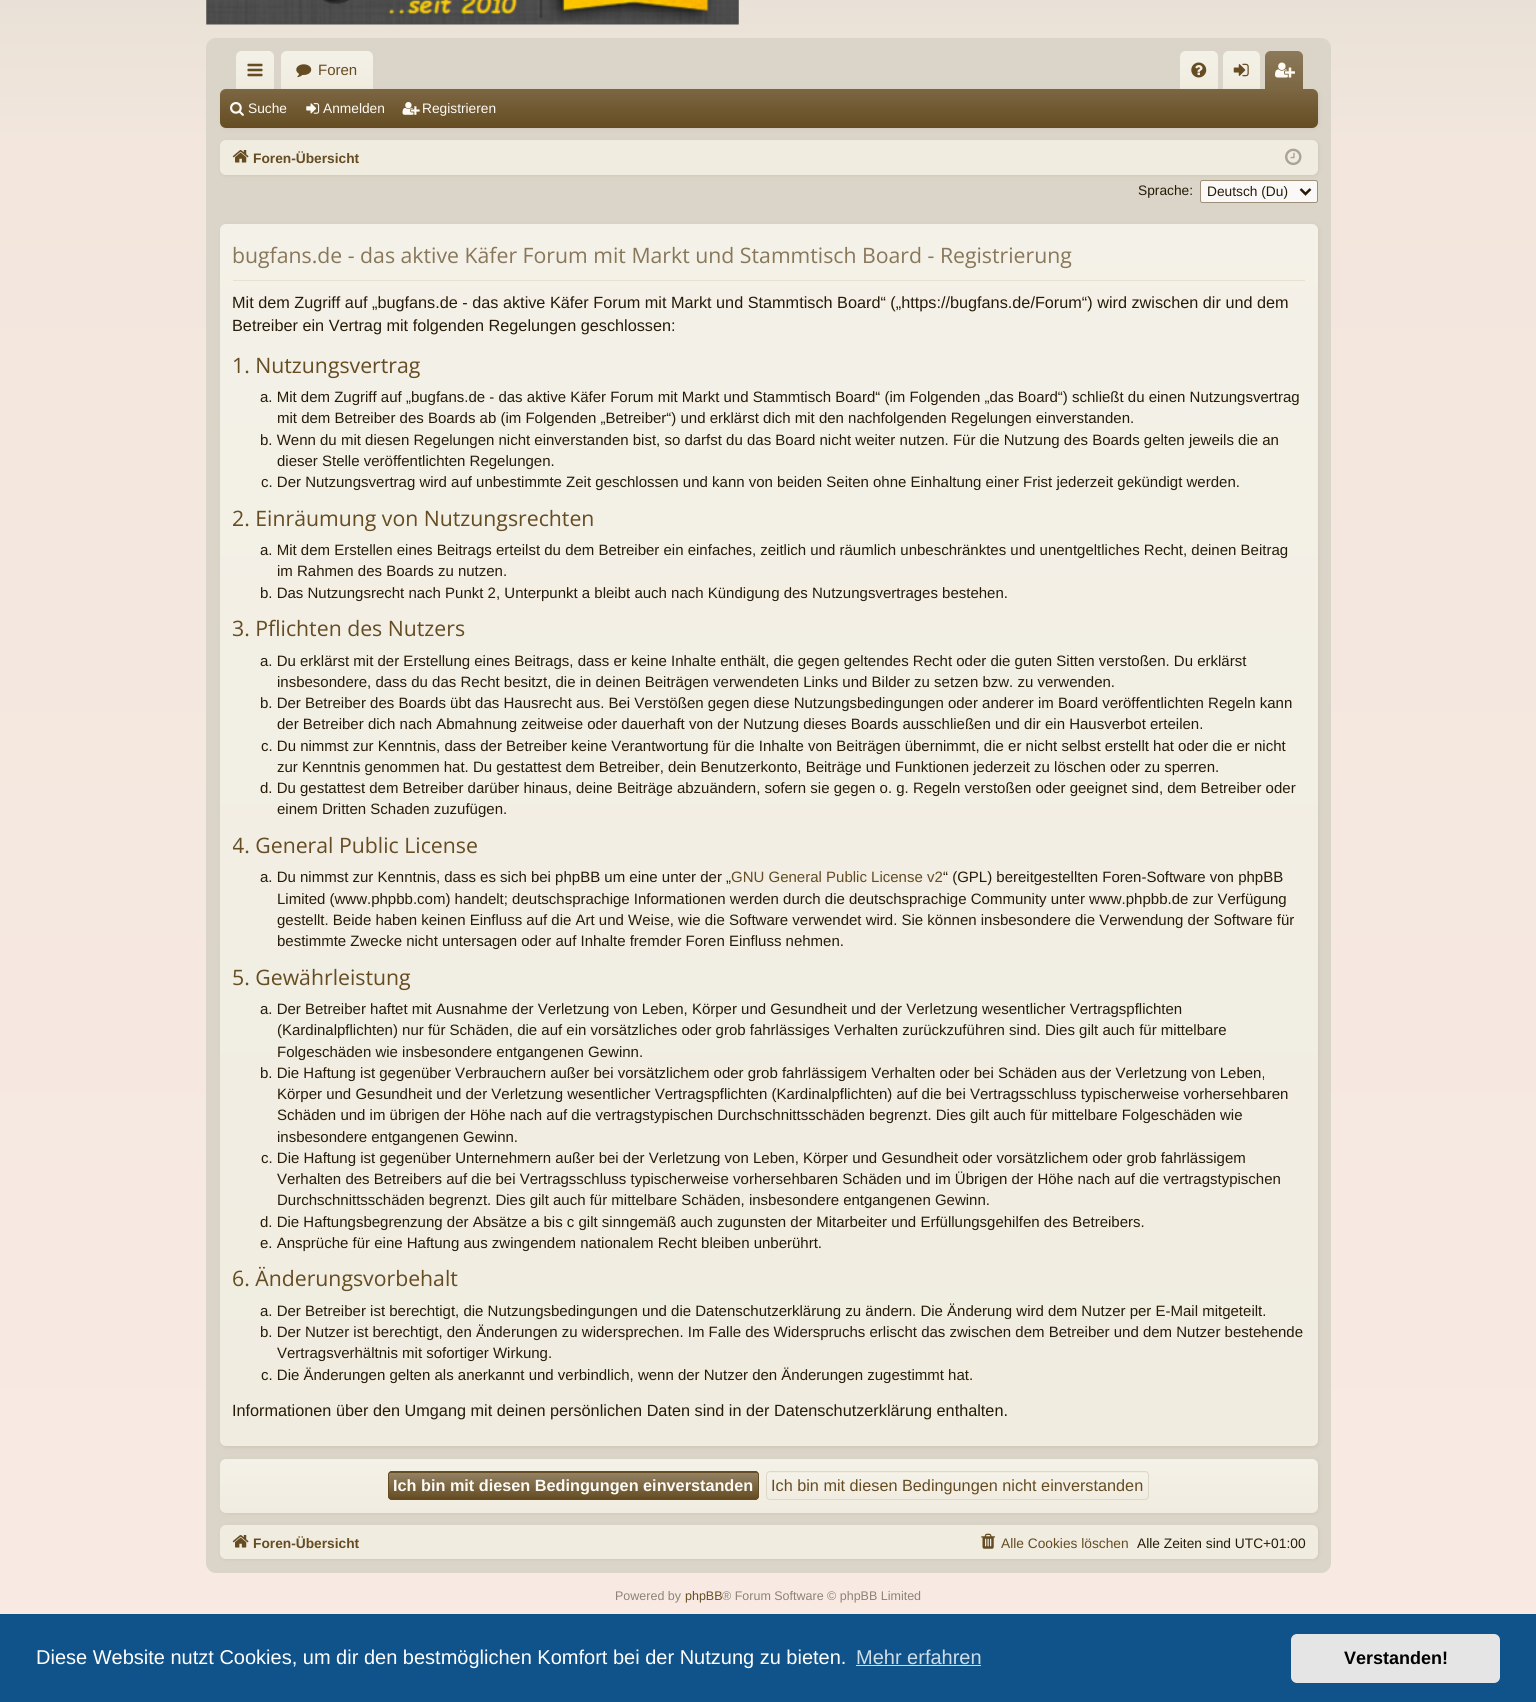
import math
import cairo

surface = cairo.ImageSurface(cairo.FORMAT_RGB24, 1536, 1702)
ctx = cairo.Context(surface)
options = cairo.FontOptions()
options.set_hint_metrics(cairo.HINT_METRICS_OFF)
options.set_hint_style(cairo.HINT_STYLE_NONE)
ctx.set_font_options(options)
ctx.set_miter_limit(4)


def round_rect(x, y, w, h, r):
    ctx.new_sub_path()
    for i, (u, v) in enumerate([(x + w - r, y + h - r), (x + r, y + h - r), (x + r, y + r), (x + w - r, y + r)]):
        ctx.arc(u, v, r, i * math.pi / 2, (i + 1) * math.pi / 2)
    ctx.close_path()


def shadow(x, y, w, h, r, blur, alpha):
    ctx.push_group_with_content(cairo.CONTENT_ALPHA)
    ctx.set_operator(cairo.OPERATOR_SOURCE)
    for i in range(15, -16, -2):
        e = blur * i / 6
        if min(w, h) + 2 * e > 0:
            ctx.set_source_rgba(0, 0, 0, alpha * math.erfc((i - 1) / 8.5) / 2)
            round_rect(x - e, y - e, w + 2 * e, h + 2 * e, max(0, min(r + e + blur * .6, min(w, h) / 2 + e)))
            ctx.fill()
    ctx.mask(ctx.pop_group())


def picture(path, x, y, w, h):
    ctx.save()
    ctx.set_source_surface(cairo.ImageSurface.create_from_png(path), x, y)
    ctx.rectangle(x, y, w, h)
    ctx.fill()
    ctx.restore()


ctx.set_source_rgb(1, 1, 1)
ctx.paint()
gradient = cairo.LinearGradient(768, -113, 768, 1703)
gradient.add_color_stop_rgba(0, 0.886, 0.867, 0.82, 1)
gradient.add_color_stop_rgba(0.14, 0.949, 0.902, 0.867, 1)
gradient.add_color_stop_rgba(1, 0.976, 0.918, 0.89, 1)
ctx.set_source(gradient)
ctx.rectangle(0, 0, 1536, 1614)
ctx.fill()
picture("img1.png", 206, 0, 533, 25)
ctx.set_source_rgb(0.859, 0.835, 0.788)
round_rect(206.5, 38.5, 1124, 1534, 9.5)
ctx.fill_preserve()
ctx.set_line_width(1)
ctx.stroke()
ctx.set_source_rgb(0.941, 0.925, 0.878)
ctx.new_path()
ctx.move_to(242, 51)
ctx.line_to(268, 51)
ctx.curve_to(271.5, 51, 274, 53.5, 274, 57)
ctx.line_to(274, 89)
ctx.line_to(236, 89)
ctx.line_to(236, 57)
ctx.curve_to(236, 53.5, 238.5, 51, 242, 51)
ctx.close_path()
ctx.fill()
gradient = cairo.LinearGradient(255, 51, 255, 89)
gradient.add_color_stop_rgba(0, 1, 1, 1, 0.25)
gradient.add_color_stop_rgba(1, 1, 1, 1, 0)
ctx.set_source(gradient)
ctx.new_path()
ctx.move_to(242, 51)
ctx.line_to(268, 51)
ctx.curve_to(271.5, 51, 274, 53.5, 274, 57)
ctx.line_to(274, 89)
ctx.line_to(236, 89)
ctx.line_to(236, 57)
ctx.curve_to(236, 53.5, 238.5, 51, 242, 51)
ctx.close_path()
ctx.fill()
picture("img2.png", 247, 63, 16, 14)
ctx.set_source_rgb(0.941, 0.925, 0.878)
ctx.new_path()
ctx.move_to(287, 51)
ctx.line_to(367, 51)
ctx.curve_to(370.5, 51, 373, 53.5, 373, 57)
ctx.line_to(373, 89)
ctx.line_to(281, 89)
ctx.line_to(281, 57)
ctx.curve_to(281, 53.5, 283.5, 51, 287, 51)
ctx.close_path()
ctx.fill()
gradient = cairo.LinearGradient(327, 51, 327, 89)
gradient.add_color_stop_rgba(0, 1, 1, 1, 0.25)
gradient.add_color_stop_rgba(1, 1, 1, 1, 0)
ctx.set_source(gradient)
ctx.new_path()
ctx.move_to(287, 51)
ctx.line_to(367, 51)
ctx.curve_to(370.5, 51, 373, 53.5, 373, 57)
ctx.line_to(373, 89)
ctx.line_to(281, 89)
ctx.line_to(281, 57)
ctx.curve_to(281, 53.5, 283.5, 51, 287, 51)
ctx.close_path()
ctx.fill()
picture("img3.png", 296, 64, 16, 14)
ctx.select_font_face("Liberation Sans")
ctx.set_font_size(15)
ctx.set_source_rgb(0.396, 0.298, 0.133)
ctx.move_to(318, 75)
ctx.show_text("Foren")
ctx.set_source_rgb(0.941, 0.925, 0.878)
ctx.new_path()
ctx.move_to(1186, 51)
ctx.line_to(1212, 51)
ctx.curve_to(1215.5, 51, 1218, 53.5, 1218, 57)
ctx.line_to(1218, 89)
ctx.line_to(1180, 89)
ctx.line_to(1180, 57)
ctx.curve_to(1180, 53.5, 1182.5, 51, 1186, 51)
ctx.close_path()
ctx.fill()
gradient = cairo.LinearGradient(1199, 51, 1199, 89)
gradient.add_color_stop_rgba(0, 1, 1, 1, 0.25)
gradient.add_color_stop_rgba(1, 1, 1, 1, 0)
ctx.set_source(gradient)
ctx.new_path()
ctx.move_to(1186, 51)
ctx.line_to(1212, 51)
ctx.curve_to(1215.5, 51, 1218, 53.5, 1218, 57)
ctx.line_to(1218, 89)
ctx.line_to(1180, 89)
ctx.line_to(1180, 57)
ctx.curve_to(1180, 53.5, 1182.5, 51, 1186, 51)
ctx.close_path()
ctx.fill()
picture("img4.png", 1191, 62, 16, 16)
ctx.set_source_rgb(0.941, 0.925, 0.878)
ctx.new_path()
ctx.move_to(1229, 51)
ctx.line_to(1254, 51)
ctx.curve_to(1257.5, 51, 1260, 53.5, 1260, 57)
ctx.line_to(1260, 89)
ctx.line_to(1223, 89)
ctx.line_to(1223, 57)
ctx.curve_to(1223, 53.5, 1225.5, 51, 1229, 51)
ctx.close_path()
ctx.fill()
gradient = cairo.LinearGradient(1241, 51, 1241, 89)
gradient.add_color_stop_rgba(0, 1, 1, 1, 0.25)
gradient.add_color_stop_rgba(1, 1, 1, 1, 0)
ctx.set_source(gradient)
ctx.new_path()
ctx.move_to(1229, 51)
ctx.line_to(1254, 51)
ctx.curve_to(1257.5, 51, 1260, 53.5, 1260, 57)
ctx.line_to(1260, 89)
ctx.line_to(1223, 89)
ctx.line_to(1223, 57)
ctx.curve_to(1223, 53.5, 1225.5, 51, 1229, 51)
ctx.close_path()
ctx.fill()
picture("img5.png", 1233, 63, 16, 14)
ctx.set_source_rgb(0.396, 0.298, 0.133)
ctx.new_path()
ctx.move_to(1271, 51)
ctx.line_to(1297, 51)
ctx.curve_to(1300.5, 51, 1303, 53.5, 1303, 57)
ctx.line_to(1303, 89)
ctx.line_to(1265, 89)
ctx.line_to(1265, 57)
ctx.curve_to(1265, 53.5, 1267.5, 51, 1271, 51)
ctx.close_path()
ctx.fill()
gradient = cairo.LinearGradient(1284, 51, 1284, 89)
gradient.add_color_stop_rgba(0, 1, 1, 1, 0.25)
gradient.add_color_stop_rgba(1, 1, 1, 1, 0.15)
ctx.set_source(gradient)
ctx.new_path()
ctx.move_to(1271, 51)
ctx.line_to(1297, 51)
ctx.curve_to(1300.5, 51, 1303, 53.5, 1303, 57)
ctx.line_to(1303, 89)
ctx.line_to(1265, 89)
ctx.line_to(1265, 57)
ctx.curve_to(1265, 53.5, 1267.5, 51, 1271, 51)
ctx.close_path()
ctx.fill()
picture("img6.png", 1275, 62, 20, 16)
ctx.set_source_rgb(0.396, 0.298, 0.133)
shadow(221, 90, 1098, 39, 6, 2, 0.1)
ctx.set_source_rgb(0.396, 0.298, 0.133)
round_rect(220, 89, 1098, 39, 6)
ctx.fill()
gradient = cairo.LinearGradient(769, 89, 769, 128)
gradient.add_color_stop_rgba(0, 1, 1, 1, 0.15)
gradient.add_color_stop_rgba(1, 1, 1, 1, 0)
ctx.set_source(gradient)
round_rect(220, 89, 1098, 39, 6)
ctx.fill()
ctx.set_source_rgb(0.396, 0.298, 0.133)
ctx.new_path()
ctx.move_to(1267.5, 88)
ctx.line_to(1300.5, 88)
ctx.curve_to(1302, 88, 1303, 89, 1303, 90.5)
ctx.line_to(1303, 91)
ctx.line_to(1265, 91)
ctx.line_to(1265, 90.5)
ctx.curve_to(1265, 89, 1266, 88, 1267.5, 88)
ctx.close_path()
ctx.fill()
ctx.set_source_rgba(1, 1, 1, 0.15)
ctx.new_path()
ctx.move_to(1267.5, 88)
ctx.line_to(1300.5, 88)
ctx.curve_to(1302, 88, 1303, 89, 1303, 90.5)
ctx.line_to(1303, 91)
ctx.line_to(1265, 91)
ctx.line_to(1265, 90.5)
ctx.curve_to(1265, 89, 1266, 88, 1267.5, 88)
ctx.close_path()
ctx.fill()
picture("img7.png", 230, 102, 14, 14)
ctx.set_font_size(13.75)
ctx.set_source_rgb(0.996, 0.984, 0.961)
ctx.move_to(248, 113)
ctx.show_text("Suche")
picture("img8.png", 306, 103, 14, 11)
ctx.move_to(323, 113)
ctx.show_text("Anmelden")
picture("img9.png", 402, 102, 18, 13)
ctx.move_to(422, 113)
ctx.show_text("Registrieren")
ctx.set_source_rgb(0.396, 0.298, 0.133)
shadow(221, 141, 1098, 35, 6, 2, 0.1)
ctx.set_source_rgb(0.941, 0.925, 0.878)
round_rect(220, 140, 1098, 35, 6)
ctx.fill()
picture("img10.png", 232, 150, 17, 13)
ctx.select_font_face("Liberation Sans", cairo.FONT_SLANT_NORMAL, cairo.FONT_WEIGHT_BOLD)
ctx.set_source_rgb(0.396, 0.298, 0.133)
ctx.move_to(253, 163)
ctx.show_text("Foren-Übersicht")
picture("img11.png", 1285, 148, 17, 18)
ctx.select_font_face("Liberation Sans")
ctx.set_source_rgb(0.153, 0.106, 0.031)
ctx.move_to(1138, 195)
ctx.show_text("Sprache:")
ctx.set_source_rgb(0.984, 0.976, 0.965)
round_rect(1200.5, 180.5, 117, 22, 2)
ctx.fill_preserve()
ctx.set_source_rgb(0.616, 0.561, 0.471)
ctx.stroke()
ctx.new_path()
ctx.move_to(1300.5, 189)
ctx.line_to(1305.5, 194)
ctx.line_to(1310.5, 189)
ctx.set_source_rgb(0.153, 0.106, 0.031)
ctx.set_line_width(2.5)
ctx.stroke()
ctx.move_to(1207, 196)
ctx.show_text("Deutsch (Du)")
ctx.set_source_rgb(0.396, 0.298, 0.133)
shadow(221, 225, 1098, 1223, 6, 2, 0.1)
ctx.set_source_rgb(0.941, 0.925, 0.878)
round_rect(220, 224, 1098, 1222, 6)
ctx.fill()
gradient = cairo.LinearGradient(769, 224, 769, 1446)
gradient.add_color_stop_rgba(0, 1, 1, 1, 0.25)
gradient.add_color_stop_rgba(1, 1, 1, 1, 0)
ctx.set_source(gradient)
round_rect(220, 224, 1098, 1222, 6)
ctx.fill()
ctx.set_source_rgb(0.91, 0.882, 0.812)
ctx.rectangle(233, 280, 1072, 1)
ctx.fill()
ctx.select_font_face("Open Sans")
ctx.set_font_size(21.25)
ctx.set_source_rgb(0.537, 0.467, 0.349)
ctx.move_to(232, 263)
ctx.show_text("bugfans.de - das aktive Käfer Forum mit Markt und Stammtisch Board - Registrierung")
ctx.select_font_face("Liberation Sans")
ctx.set_font_size(16.25)
ctx.set_source_rgb(0.153, 0.106, 0.031)
ctx.move_to(232, 308)
ctx.show_text("Mit dem Zugriff auf „bugfans.de - das aktive Käfer Forum mit Markt und Stammtisch Board“ („https://bugfans.de/Forum“) wird zwischen dir und dem")
ctx.move_to(232, 331)
ctx.show_text("Betreiber ein Vertrag mit folgenden Regelungen geschlossen:")
ctx.select_font_face("Open Sans")
ctx.set_font_size(21.25)
ctx.set_source_rgb(0.396, 0.298, 0.133)
ctx.move_to(232, 373)
ctx.show_text("1. Nutzungsvertrag")
ctx.select_font_face("Liberation Sans")
ctx.set_font_size(15)
ctx.set_source_rgb(0.153, 0.106, 0.031)
ctx.move_to(260, 402)
ctx.show_text("a. Mit dem Zugriff auf „bugfans.de - das aktive Käfer Forum mit Markt und Stammtisch Board“ (im Folgenden „das Board“) schließt du einen Nutzungsvertrag")
ctx.move_to(277, 423)
ctx.show_text("mit dem Betreiber des Boards ab (im Folgenden „Betreiber“) und erklärst dich mit den nachfolgenden Regelungen einverstanden.")
ctx.move_to(260, 445)
ctx.show_text("b. Wenn du mit diesen Regelungen nicht einverstanden bist, so darfst du das Board nicht weiter nutzen. Für die Nutzung des Boards gelten jeweils die an")
ctx.move_to(277, 466)
ctx.show_text("dieser Stelle veröffentlichten Regelungen.")
ctx.move_to(261, 487)
ctx.show_text("c. Der Nutzungsvertrag wird auf unbestimmte Zeit geschlossen und kann von beiden Seiten ohne Einhaltung einer Frist jederzeit gekündigt werden.")
ctx.select_font_face("Open Sans")
ctx.set_font_size(21.25)
ctx.set_source_rgb(0.396, 0.298, 0.133)
ctx.move_to(232, 526)
ctx.show_text("2. Einräumung von Nutzungsrechten")
ctx.select_font_face("Liberation Sans")
ctx.set_font_size(15)
ctx.set_source_rgb(0.153, 0.106, 0.031)
ctx.move_to(260, 555)
ctx.show_text("a. Mit dem Erstellen eines Beitrags erteilst du dem Betreiber ein einfaches, zeitlich und räumlich unbeschränktes und unentgeltliches Recht, deinen Beitrag")
ctx.move_to(277, 576)
ctx.show_text("im Rahmen des Boards zu nutzen.")
ctx.move_to(260, 598)
ctx.show_text("b. Das Nutzungsrecht nach Punkt 2, Unterpunkt a bleibt auch nach Kündigung des Nutzungsvertrages bestehen.")
ctx.select_font_face("Open Sans")
ctx.set_font_size(21.25)
ctx.set_source_rgb(0.396, 0.298, 0.133)
ctx.move_to(232, 636)
ctx.show_text("3. Pflichten des Nutzers")
ctx.select_font_face("Liberation Sans")
ctx.set_font_size(15)
ctx.set_source_rgb(0.153, 0.106, 0.031)
ctx.move_to(260, 666)
ctx.show_text("a. Du erklärst mit der Erstellung eines Beitrags, dass er keine Inhalte enthält, die gegen geltendes Recht oder die guten Sitten verstoßen. Du erklärst")
ctx.move_to(277, 687)
ctx.show_text("insbesondere, dass du das Recht besitzt, die in deinen Beiträgen verwendeten Links und Bilder zu setzen bzw. zu verwenden.")
ctx.move_to(260, 708)
ctx.show_text("b. Der Betreiber des Boards übt das Hausrecht aus. Bei Verstößen gegen diese Nutzungsbedingungen oder anderer im Board veröffentlichten Regeln kann")
ctx.move_to(277, 729)
ctx.show_text("der Betreiber dich nach Abmahnung zeitweise oder dauerhaft von der Nutzung dieses Boards ausschließen und dir ein Hausverbot erteilen.")
ctx.move_to(261, 751)
ctx.show_text("c. Du nimmst zur Kenntnis, dass der Betreiber keine Verantwortung für die Inhalte von Beiträgen übernimmt, die er nicht selbst erstellt hat oder die er nicht")
ctx.move_to(277, 772)
ctx.show_text("zur Kenntnis genommen hat. Du gestattest dem Betreiber, dein Benutzerkonto, Beiträge und Funktionen jederzeit zu löschen oder zu sperren.")
ctx.move_to(260, 793)
ctx.show_text("d. Du gestattest dem Betreiber darüber hinaus, deine Beiträge abzuändern, sofern sie gegen o. g. Regeln verstoßen oder geeignet sind, dem Betreiber oder")
ctx.move_to(277, 814)
ctx.show_text("einem Dritten Schaden zuzufügen.")
ctx.save()
ctx.rectangle(233, 230, 1072, 1210)
ctx.clip()
ctx.select_font_face("Open Sans")
ctx.set_font_size(21.25)
ctx.set_source_rgb(0.396, 0.298, 0.133)
ctx.move_to(232, 853)
ctx.show_text("4. General Public License")
ctx.restore()
ctx.move_to(260, 882)
ctx.show_text("a. Du nimmst zur Kenntnis, dass es sich bei phpBB um eine unter der „")
ctx.set_source_rgb(0.396, 0.298, 0.133)
ctx.move_to(731, 882)
ctx.show_text("GNU General Public License v2")
ctx.set_source_rgb(0.153, 0.106, 0.031)
ctx.move_to(943, 882)
ctx.show_text("“ (GPL) bereitgestellten Foren-Software von phpBB")
ctx.move_to(277, 904)
ctx.show_text("Limited (www.phpbb.com) handelt; deutschsprachige Informationen werden durch die deutschsprachige Community unter www.phpbb.de zur Verfügung")
ctx.move_to(277, 925)
ctx.show_text("gestellt. Beide haben keinen Einfluss auf die Art und Weise, wie die Software verwendet wird. Sie können insbesondere die Verwendung der Software für")
ctx.move_to(277, 946)
ctx.show_text("bestimmte Zwecke nicht untersagen oder auf Inhalte fremder Foren Einfluss nehmen.")
ctx.select_font_face("Open Sans")
ctx.set_font_size(21.25)
ctx.set_source_rgb(0.396, 0.298, 0.133)
ctx.move_to(232, 985)
ctx.show_text("5. Gewährleistung")
ctx.select_font_face("Liberation Sans")
ctx.set_font_size(15)
ctx.set_source_rgb(0.153, 0.106, 0.031)
ctx.move_to(260, 1014)
ctx.show_text("a. Der Betreiber haftet mit Ausnahme der Verletzung von Leben, Körper und Gesundheit und der Verletzung wesentlicher Vertragspflichten")
ctx.move_to(277, 1035)
ctx.show_text("(Kardinalpflichten) nur für Schäden, die auf ein vorsätzliches oder grob fahrlässiges Verhalten zurückzuführen sind. Dies gilt auch für mittelbare")
ctx.move_to(277, 1057)
ctx.show_text("Folgeschäden wie insbesondere entgangenen Gewinn.")
ctx.move_to(260, 1078)
ctx.show_text("b. Die Haftung ist gegenüber Verbrauchern außer bei vorsätzlichem oder grob fahrlässigem Verhalten oder bei Schäden aus der Verletzung von Leben,")
ctx.move_to(277, 1099)
ctx.show_text("Körper und Gesundheit und der Verletzung wesentlicher Vertragspflichten (Kardinalpflichten) auf die bei Vertragsschluss typischerweise vorhersehbaren")
ctx.move_to(277, 1120)
ctx.show_text("Schäden und im übrigen der Höhe nach auf die vertragstypischen Durchschnittsschäden begrenzt. Dies gilt auch für mittelbare Folgeschäden wie")
ctx.move_to(277, 1142)
ctx.show_text("insbesondere entgangenen Gewinn.")
ctx.move_to(261, 1163)
ctx.show_text("c. Die Haftung ist gegenüber Unternehmern außer bei der Verletzung von Leben, Körper und Gesundheit oder vorsätzlichem oder grob fahrlässigem")
ctx.move_to(277, 1184)
ctx.show_text("Verhalten des Betreibers auf die bei Vertragsschluss typischerweise vorhersehbaren Schäden und im Übrigen der Höhe nach auf die vertragstypischen")
ctx.move_to(277, 1205)
ctx.show_text("Durchschnittsschäden begrenzt. Dies gilt auch für mittelbare Schäden, insbesondere entgangenen Gewinn.")
ctx.move_to(260, 1227)
ctx.show_text("d. Die Haftungsbegrenzung der Absätze a bis c gilt sinngemäß auch zugunsten der Mitarbeiter und Erfüllungsgehilfen des Betreibers.")
ctx.move_to(260, 1248)
ctx.show_text("e. Ansprüche für eine Haftung aus zwingendem nationalem Recht bleiben unberührt.")
ctx.select_font_face("Open Sans")
ctx.set_font_size(21.25)
ctx.set_source_rgb(0.396, 0.298, 0.133)
ctx.move_to(232, 1286)
ctx.show_text("6. Änderungsvorbehalt")
ctx.select_font_face("Liberation Sans")
ctx.set_font_size(15)
ctx.set_source_rgb(0.153, 0.106, 0.031)
ctx.move_to(260, 1316)
ctx.show_text("a. Der Betreiber ist berechtigt, die Nutzungsbedingungen und die Datenschutzerklärung zu ändern. Die Änderung wird dem Nutzer per E-Mail mitgeteilt.")
ctx.move_to(260, 1337)
ctx.show_text("b. Der Nutzer ist berechtigt, den Änderungen zu widersprechen. Im Falle des Widerspruchs erlischt das zwischen dem Betreiber und dem Nutzer bestehende")
ctx.move_to(277, 1358)
ctx.show_text("Vertragsverhältnis mit sofortiger Wirkung.")
ctx.move_to(261, 1380)
ctx.show_text("c. Die Änderungen gelten als anerkannt und verbindlich, wenn der Nutzer den Änderungen zugestimmt hat.")
ctx.set_font_size(16.25)
ctx.move_to(232, 1416)
ctx.show_text("Informationen über den Umgang mit deinen persönlichen Daten sind in der Datenschutzerklärung enthalten.")
ctx.set_source_rgb(0.396, 0.298, 0.133)
shadow(221, 1460, 1098, 54, 6, 2, 0.1)
ctx.set_source_rgb(0.941, 0.925, 0.878)
round_rect(220, 1459, 1098, 54, 6)
ctx.fill()
gradient = cairo.LinearGradient(769, 1459, 769, 1513)
gradient.add_color_stop_rgba(0, 1, 1, 1, 0.25)
gradient.add_color_stop_rgba(1, 1, 1, 1, 0)
ctx.set_source(gradient)
round_rect(220, 1459, 1098, 54, 6)
ctx.fill()
ctx.set_source_rgb(0.396, 0.298, 0.133)
round_rect(388, 1471, 371, 29, 4)
ctx.fill()
gradient = cairo.LinearGradient(573, 1473, 573, 1499)
gradient.add_color_stop_rgba(0, 1, 1, 1, 0.3)
gradient.add_color_stop_rgba(1, 1, 1, 1, 0)
ctx.set_source(gradient)
ctx.rectangle(388, 1473, 371, 24)
ctx.fill()
round_rect(388.5, 1471.5, 370, 28, 3.5)
ctx.set_source_rgb(0.396, 0.298, 0.133)
ctx.set_line_width(1)
ctx.stroke()
ctx.select_font_face("Liberation Sans", cairo.FONT_SLANT_NORMAL, cairo.FONT_WEIGHT_BOLD)
ctx.set_source_rgb(0.996, 0.984, 0.961)
ctx.move_to(393, 1491)
ctx.show_text("Ich bin mit diesen Bedingungen einverstanden")
ctx.set_source_rgb(0.941, 0.925, 0.878)
round_rect(766, 1471, 383, 29, 4)
ctx.fill()
ctx.save()
round_rect(766, 1471, 383, 29, 4)
ctx.clip()
gradient = cairo.LinearGradient(958, 1473, 958, 1499)
gradient.add_color_stop_rgba(0, 0.961, 0.949, 0.914, 1)
gradient.add_color_stop_rgba(1, 0.941, 0.925, 0.878, 1)
ctx.set_source(gradient)
ctx.rectangle(766, 1473, 383, 26)
ctx.fill()
ctx.restore()
round_rect(766.5, 1471.5, 382, 28, 3.5)
ctx.set_source_rgb(0.867, 0.843, 0.784)
ctx.stroke()
ctx.select_font_face("Liberation Sans")
ctx.set_source_rgb(0.396, 0.298, 0.133)
ctx.move_to(771, 1491)
ctx.show_text("Ich bin mit diesen Bedingungen nicht einverstanden")
ctx.set_source_rgb(0.396, 0.298, 0.133)
shadow(221, 1526, 1098, 34, 6, 2, 0.1)
ctx.set_source_rgb(0.941, 0.925, 0.878)
round_rect(220, 1525, 1098, 34, 6)
ctx.fill()
picture("img10.png", 232, 1535, 17, 13)
ctx.select_font_face("Liberation Sans", cairo.FONT_SLANT_NORMAL, cairo.FONT_WEIGHT_BOLD)
ctx.set_font_size(13.75)
ctx.set_source_rgb(0.396, 0.298, 0.133)
ctx.move_to(253, 1548)
ctx.show_text("Foren-Übersicht")
picture("img12.png", 981, 1533, 14, 16)
ctx.select_font_face("Liberation Sans")
ctx.move_to(1001, 1548)
ctx.show_text("Alle Cookies löschen")
ctx.set_source_rgb(0.153, 0.106, 0.031)
ctx.move_to(1137, 1548)
ctx.show_text("Alle Zeiten sind UTC+01:00")
ctx.set_font_size(12.5)
ctx.set_source_rgb(0.545, 0.514, 0.455)
ctx.move_to(615, 1600)
ctx.show_text("Powered by")
ctx.set_source_rgb(0.396, 0.298, 0.133)
ctx.move_to(685, 1600)
ctx.show_text("phpBB")
ctx.set_source_rgb(0.545, 0.514, 0.455)
ctx.move_to(722, 1600)
ctx.show_text("® Forum Software © phpBB Limited")
ctx.set_source_rgb(0.059, 0.325, 0.541)
ctx.rectangle(0, 1614, 1536, 88)
ctx.fill()
ctx.set_font_size(20)
ctx.set_source_rgb(1, 1, 1)
ctx.move_to(36, 1664)
ctx.show_text("Diese Website nutzt Cookies, um dir den bestmöglichen Komfort bei der Nutzung zu bieten.")
ctx.set_source_rgb(0.812, 0.867, 0.91)
ctx.move_to(856, 1664)
ctx.show_text("Mehr erfahren")
ctx.rectangle(856, 1665, 125, 1)
ctx.fill()
ctx.set_source_rgb(0.898, 0.898, 0.898)
round_rect(1291, 1634, 209, 49, 6)
ctx.fill()
ctx.select_font_face("Liberation Sans", cairo.FONT_SLANT_NORMAL, cairo.FONT_WEIGHT_BOLD)
ctx.set_font_size(18)
ctx.set_source_rgb(0, 0, 0)
ctx.move_to(1344, 1664)
ctx.show_text("Verstanden!")
surface.write_to_png("page.png")
